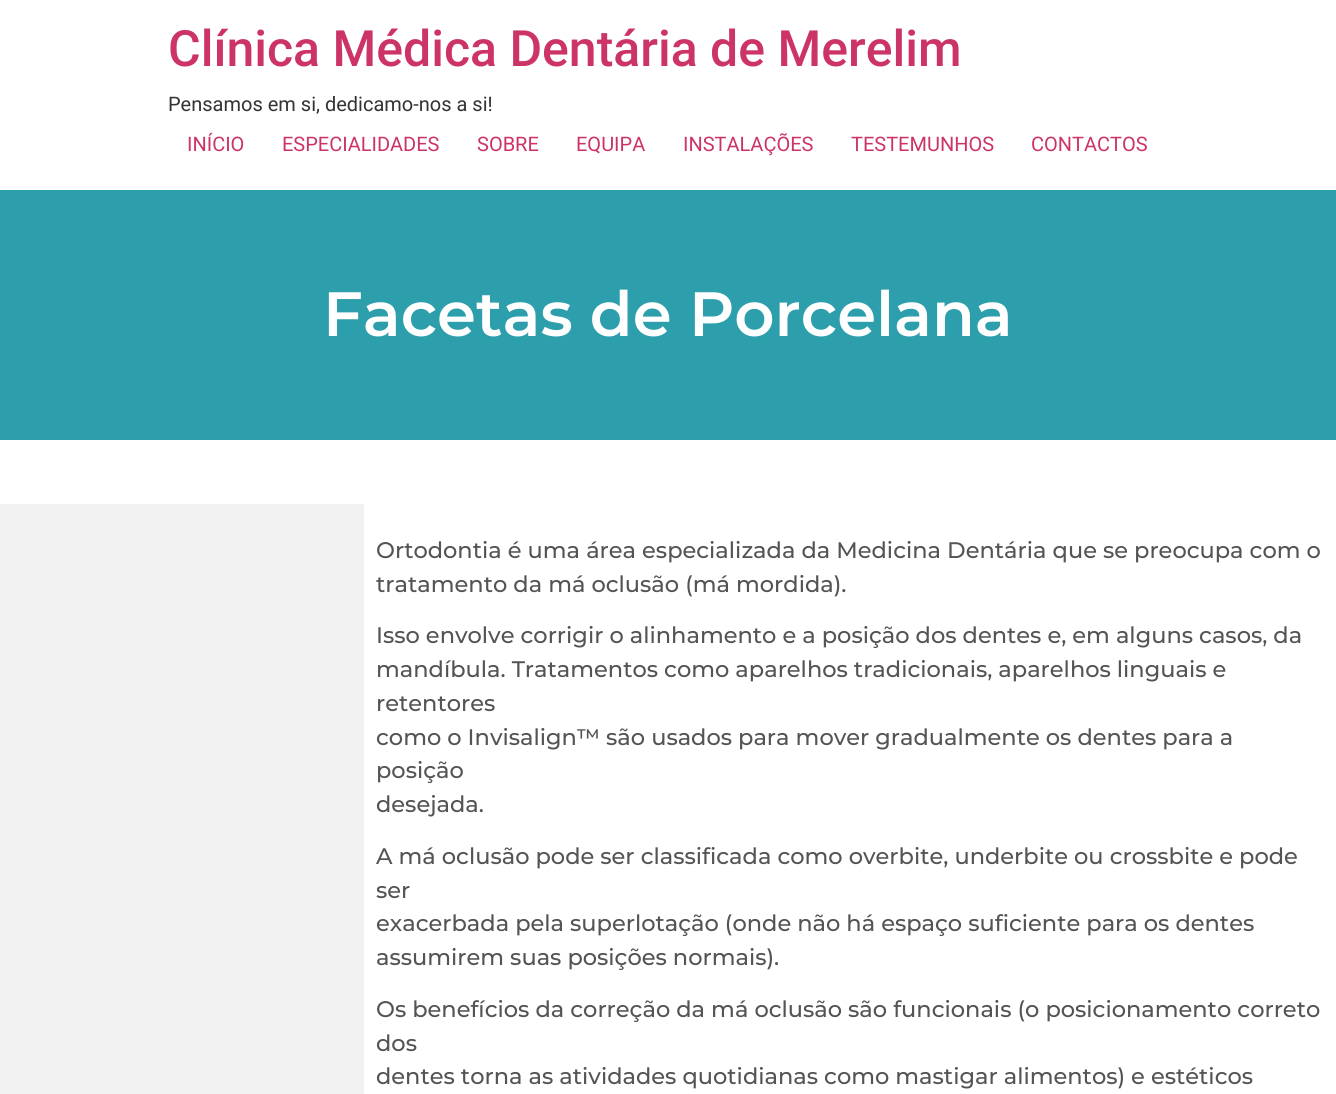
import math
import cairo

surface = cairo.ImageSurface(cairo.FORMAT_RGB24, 1336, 1094)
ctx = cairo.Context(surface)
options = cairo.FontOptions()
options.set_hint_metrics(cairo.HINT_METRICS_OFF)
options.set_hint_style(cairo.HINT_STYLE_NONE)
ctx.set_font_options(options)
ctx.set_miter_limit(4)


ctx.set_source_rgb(1, 1, 1)
ctx.paint()
ctx.select_font_face("Roboto Medium")
ctx.set_font_size(50)
ctx.set_source_rgb(0.8, 0.2, 0.4)
ctx.move_to(168, 66)
ctx.show_text("Clínica Médica Dentária de Merelim")
ctx.select_font_face("Roboto")
ctx.set_font_size(20)
ctx.set_source_rgb(0.2, 0.2, 0.2)
ctx.move_to(168, 111)
ctx.show_text("Pensamos em si, dedicamo-nos a si!")
ctx.set_source_rgb(0.8, 0.2, 0.4)
ctx.move_to(187, 151)
ctx.show_text("INÍCIO")
ctx.move_to(282, 151)
ctx.show_text("ESPECIALIDADES")
ctx.move_to(477, 151)
ctx.show_text("SOBRE")
ctx.move_to(576, 151)
ctx.show_text("EQUIPA")
ctx.move_to(683, 151)
ctx.show_text("INSTALAÇÕES")
ctx.move_to(851, 151)
ctx.show_text("TESTEMUNHOS")
ctx.move_to(1031, 151)
ctx.show_text("CONTACTOS")
ctx.set_source_rgb(0.176, 0.62, 0.671)
ctx.rectangle(0, 190, 1336, 250)
ctx.fill()
ctx.select_font_face("Montserrat SemiBold")
ctx.set_font_size(62.5)
ctx.set_source_rgb(1, 1, 1)
ctx.move_to(323, 336)
ctx.show_text("Facetas de Porcelana")
ctx.set_source_rgb(0.949, 0.949, 0.949)
ctx.rectangle(0, 504, 364, 590)
ctx.fill()
ctx.select_font_face("Montserrat Medium")
ctx.set_font_size(22.5)
ctx.set_source_rgb(0.329, 0.329, 0.329)
ctx.move_to(376, 558)
ctx.show_text("Ortodontia é uma área especializada da Medicina Dentária que se preocupa com o")
ctx.move_to(376, 592)
ctx.show_text("tratamento da má oclusão (má mordida).")
ctx.move_to(376, 643)
ctx.show_text("Isso envolve corrigir o alinhamento e a posição dos dentes e, em alguns casos, da")
ctx.move_to(376, 677)
ctx.show_text("mandíbula. Tratamentos como aparelhos tradicionais, aparelhos linguais e")
ctx.move_to(376, 711)
ctx.show_text("retentores")
ctx.move_to(376, 745)
ctx.show_text("como o Invisalign™ são usados para mover gradualmente os dentes para a")
ctx.move_to(376, 778)
ctx.show_text("posição")
ctx.move_to(376, 812)
ctx.show_text("desejada.")
ctx.move_to(376, 864)
ctx.show_text("A má oclusão pode ser classificada como overbite, underbite ou crossbite e pode")
ctx.move_to(376, 898)
ctx.show_text("ser")
ctx.move_to(376, 931)
ctx.show_text("exacerbada pela superlotação (onde não há espaço suficiente para os dentes")
ctx.move_to(376, 965)
ctx.show_text("assumirem suas posições normais).")
ctx.move_to(376, 1017)
ctx.show_text("Os benefícios da correção da má oclusão são funcionais (o posicionamento correto")
ctx.move_to(376, 1051)
ctx.show_text("dos")
ctx.move_to(376, 1084)
ctx.show_text("dentes torna as atividades quotidianas como mastigar alimentos) e estéticos")
surface.write_to_png("page.png")
